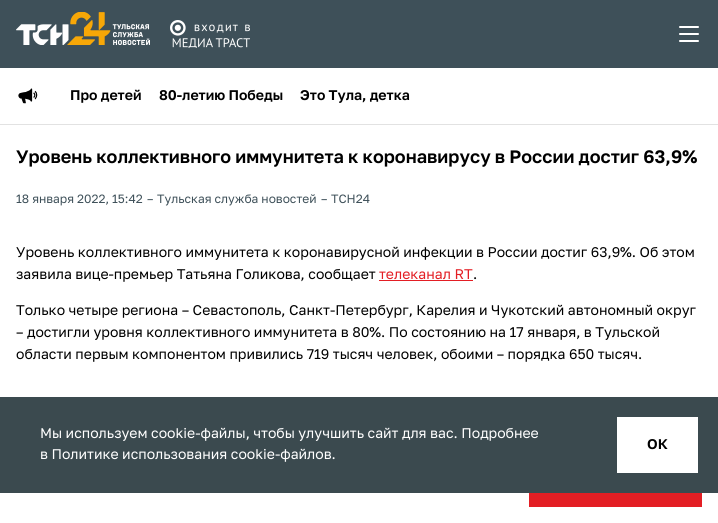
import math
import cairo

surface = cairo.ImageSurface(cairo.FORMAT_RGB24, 718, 523)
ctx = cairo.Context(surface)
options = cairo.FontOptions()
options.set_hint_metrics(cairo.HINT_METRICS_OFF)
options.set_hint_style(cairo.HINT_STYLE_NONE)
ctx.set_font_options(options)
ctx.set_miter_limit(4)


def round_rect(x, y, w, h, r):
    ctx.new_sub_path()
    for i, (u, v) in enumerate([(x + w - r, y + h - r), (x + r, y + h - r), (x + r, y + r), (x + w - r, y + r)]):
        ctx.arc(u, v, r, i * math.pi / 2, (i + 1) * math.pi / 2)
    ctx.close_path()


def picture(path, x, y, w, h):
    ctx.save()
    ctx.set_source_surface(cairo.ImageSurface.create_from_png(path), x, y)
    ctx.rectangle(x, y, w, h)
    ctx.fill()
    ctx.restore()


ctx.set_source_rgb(1, 1, 1)
ctx.paint()
ctx.set_source_rgb(0.243, 0.314, 0.349)
ctx.rectangle(0, 0, 718, 68)
ctx.fill()
picture("img1.png", 16, 12, 134, 33)
picture("img2.png", 170, 20, 80, 28)
ctx.set_source_rgb(1, 1, 1)
round_rect(679, 26, 20, 2, 1)
ctx.fill()
round_rect(679, 33, 20, 2, 1)
ctx.fill()
round_rect(679, 40, 20, 2, 1)
ctx.fill()
picture("img3.png", 18, 88, 20, 16)
ctx.select_font_face("Golos Text SemiBold")
ctx.set_font_size(14)
ctx.set_source_rgb(0, 0, 0)
ctx.move_to(70, 100)
ctx.show_text("Про детей")
ctx.move_to(159, 100)
ctx.show_text("80-летию Победы")
ctx.move_to(300, 100)
ctx.show_text("Это Тула, детка")
ctx.set_source_rgb(0.886, 0.886, 0.886)
ctx.rectangle(0, 124, 718, 1)
ctx.fill()
ctx.set_font_size(18)
ctx.set_source_rgb(0, 0, 0)
ctx.move_to(16, 163)
ctx.show_text("Уровень коллективного иммунитета к коронавирусу в России достиг 63,9%")
ctx.select_font_face("Golos Text")
ctx.set_font_size(12)
ctx.set_source_rgb(0.243, 0.314, 0.349)
ctx.move_to(16, 203)
ctx.show_text("18 января 2022, 15:42")
ctx.move_to(147, 203)
ctx.show_text("–")
ctx.move_to(157, 203)
ctx.show_text("Тульская служба новостей")
ctx.move_to(321, 203)
ctx.show_text("–")
ctx.move_to(331, 203)
ctx.show_text("ТСН24")
ctx.set_font_size(14)
ctx.set_source_rgb(0, 0, 0)
ctx.move_to(16, 257)
ctx.show_text("Уровень коллективного иммунитета к коронавирусной инфекции в России достиг 63,9%. Об этом")
ctx.move_to(16, 279)
ctx.show_text("заявила вице-премьер Татьяна Голикова, сообщает")
ctx.set_source_rgb(0.89, 0.118, 0.141)
ctx.move_to(379, 279)
ctx.show_text("телеканал RT")
ctx.rectangle(379, 280, 94, 1)
ctx.fill()
ctx.set_source_rgb(0, 0, 0)
ctx.move_to(473, 279)
ctx.show_text(".")
ctx.move_to(16, 315)
ctx.show_text("Только четыре региона – Севастополь, Санкт-Петербург, Карелия и Чукотский автономный округ")
ctx.move_to(16, 337)
ctx.show_text("– достигли уровня коллективного иммунитета в 80%. По состоянию на 17 января, в Тульской")
ctx.move_to(16, 359)
ctx.show_text("области первым компонентом привились 719 тысяч человек, обоими – порядка 650 тысяч.")
ctx.set_source_rgb(0.89, 0.118, 0.141)
ctx.rectangle(529, 493, 173, 14)
ctx.fill()
ctx.set_source_rgb(0.231, 0.29, 0.31)
ctx.rectangle(0, 397, 718, 96)
ctx.fill()
ctx.set_source_rgb(1, 1, 1)
ctx.move_to(40, 438)
ctx.show_text("Мы используем cookie-файлы, чтобы улучшить сайт для вас. Подробнее")
ctx.move_to(40, 459)
ctx.show_text("в Политике использования cookie-файлов.")
ctx.rectangle(617, 417, 81, 56)
ctx.fill()
ctx.select_font_face("Golos Text SemiBold")
ctx.set_source_rgb(0, 0, 0)
ctx.move_to(647, 449)
ctx.show_text("ОК")
surface.write_to_png("page.png")
